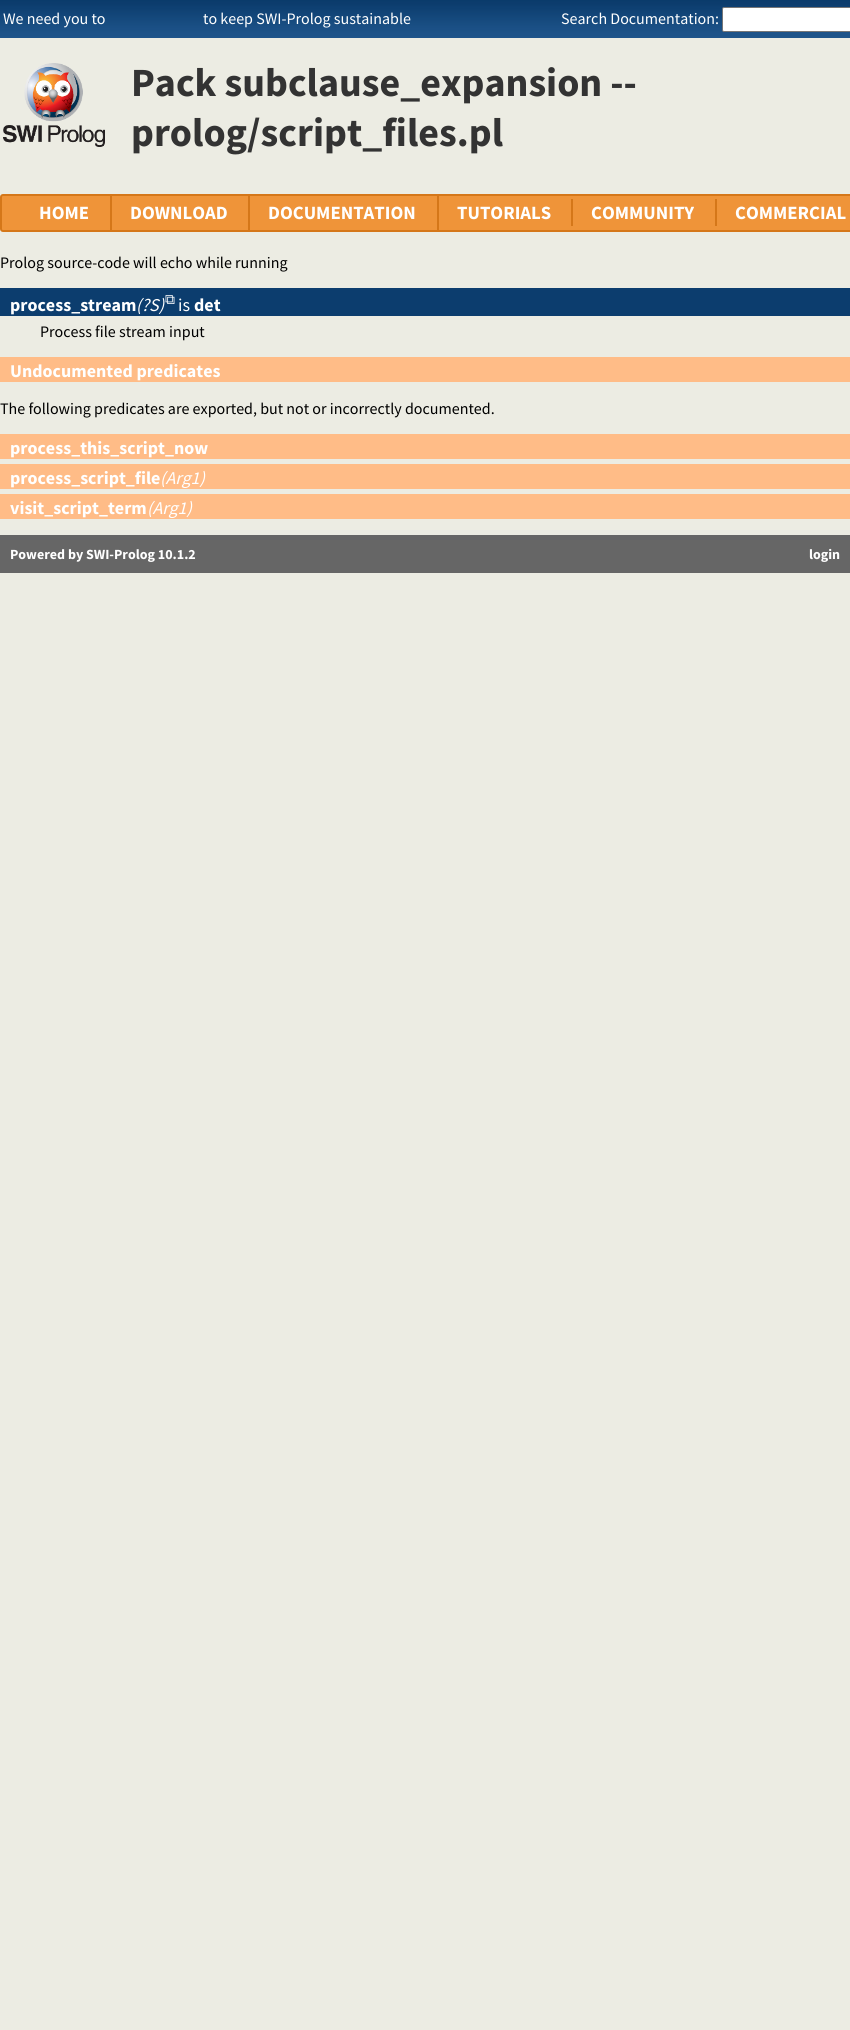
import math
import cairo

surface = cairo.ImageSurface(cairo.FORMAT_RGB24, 850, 2030)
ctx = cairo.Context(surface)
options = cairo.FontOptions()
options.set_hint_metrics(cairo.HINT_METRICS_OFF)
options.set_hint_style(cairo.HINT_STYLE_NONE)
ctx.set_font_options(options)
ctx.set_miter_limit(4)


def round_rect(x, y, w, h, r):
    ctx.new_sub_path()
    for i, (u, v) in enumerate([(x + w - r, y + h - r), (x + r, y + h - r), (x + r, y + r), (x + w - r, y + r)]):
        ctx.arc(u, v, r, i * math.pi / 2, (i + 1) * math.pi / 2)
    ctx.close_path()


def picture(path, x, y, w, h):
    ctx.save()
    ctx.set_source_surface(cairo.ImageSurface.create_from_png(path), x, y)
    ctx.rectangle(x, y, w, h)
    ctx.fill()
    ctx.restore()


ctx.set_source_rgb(0.925, 0.922, 0.89)
ctx.paint()
picture("img1.png", 0, 0, 850, 38)
ctx.select_font_face("Source Sans Pro")
ctx.set_font_size(16)
ctx.set_source_rgb(1, 1, 1)
ctx.move_to(3, 24)
ctx.show_text("We need you to")
ctx.move_to(203, 24)
ctx.show_text("to keep SWI-Prolog sustainable")
ctx.move_to(561, 24)
ctx.show_text("Search Documentation:")
round_rect(722.5, 7.5, 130, 24, 1.5)
ctx.fill_preserve()
ctx.set_source_rgb(0.463, 0.463, 0.463)
ctx.set_line_width(1)
ctx.stroke()
picture("img2.png", 3, 63, 102, 84)
ctx.select_font_face("Source Sans Pro", cairo.FONT_SLANT_NORMAL, cairo.FONT_WEIGHT_BOLD)
ctx.set_font_size(40)
ctx.set_source_rgb(0.2, 0.2, 0.2)
ctx.move_to(131, 96)
ctx.show_text("Pack subclause_expansion --")
ctx.move_to(131, 146)
ctx.show_text("prolog/script_files.pl")
ctx.set_source_rgb(0.937, 0.58, 0.224)
round_rect(1, 195, 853, 36, 2)
ctx.fill_preserve()
ctx.set_source_rgb(0.835, 0.467, 0.098)
ctx.set_line_width(2)
ctx.stroke()
ctx.set_font_size(18.75)
ctx.set_source_rgb(1, 1, 1)
ctx.move_to(39, 219)
ctx.show_text("HOME")
ctx.set_source_rgb(0.835, 0.467, 0.098)
ctx.rectangle(110, 196, 2, 34)
ctx.fill()
ctx.set_source_rgb(1, 1, 1)
ctx.move_to(130, 219)
ctx.show_text("DOWNLOAD")
ctx.set_source_rgb(0.835, 0.467, 0.098)
ctx.rectangle(248, 196, 2, 34)
ctx.fill()
ctx.set_source_rgb(1, 1, 1)
ctx.move_to(268, 219)
ctx.show_text("DOCUMENTATION")
ctx.set_source_rgb(0.835, 0.467, 0.098)
ctx.rectangle(437, 196, 2, 34)
ctx.fill()
ctx.set_source_rgb(1, 1, 1)
ctx.move_to(457, 219)
ctx.show_text("TUTORIALS")
ctx.set_source_rgb(0.835, 0.467, 0.098)
ctx.rectangle(571, 199, 2, 27)
ctx.fill()
ctx.set_source_rgb(1, 1, 1)
ctx.move_to(591, 219)
ctx.show_text("COMMUNITY")
ctx.set_source_rgb(0.835, 0.467, 0.098)
ctx.rectangle(715, 199, 2, 27)
ctx.fill()
ctx.set_source_rgb(1, 1, 1)
ctx.move_to(735, 219)
ctx.show_text("COMMERCIAL")
ctx.select_font_face("Source Sans Pro")
ctx.set_font_size(16)
ctx.set_source_rgb(0, 0, 0)
ctx.move_to(0, 268)
ctx.show_text("Prolog source-code will echo while running")
ctx.set_source_rgb(0.047, 0.239, 0.431)
ctx.rectangle(0, 288, 850, 28)
ctx.fill()
ctx.select_font_face("Source Sans Pro", cairo.FONT_SLANT_NORMAL, cairo.FONT_WEIGHT_BOLD)
ctx.set_font_size(18)
ctx.set_source_rgb(1, 1, 1)
ctx.move_to(10, 311)
ctx.show_text("process_stream")
ctx.select_font_face("Source Sans Pro", cairo.FONT_SLANT_ITALIC)
ctx.move_to(136, 311)
ctx.show_text("(?S)")
ctx.select_font_face("FreeSerif")
ctx.set_font_size(14)
ctx.move_to(165, 304)
ctx.show_text("⧉")
ctx.select_font_face("Source Sans Pro")
ctx.set_font_size(18)
ctx.move_to(178, 311)
ctx.show_text("is")
ctx.select_font_face("Source Sans Pro", cairo.FONT_SLANT_NORMAL, cairo.FONT_WEIGHT_BOLD)
ctx.move_to(194, 311)
ctx.show_text("det")
ctx.select_font_face("Source Sans Pro")
ctx.set_font_size(16)
ctx.set_source_rgb(0, 0, 0)
ctx.move_to(40, 337)
ctx.show_text("Process file stream input")
ctx.set_source_rgb(1, 0.737, 0.529)
ctx.rectangle(0, 357, 850, 25)
ctx.fill()
ctx.select_font_face("Source Sans Pro", cairo.FONT_SLANT_NORMAL, cairo.FONT_WEIGHT_BOLD)
ctx.set_font_size(18)
ctx.set_source_rgb(1, 1, 1)
ctx.move_to(10, 377)
ctx.show_text("Undocumented predicates")
ctx.select_font_face("Source Sans Pro")
ctx.set_font_size(16)
ctx.set_source_rgb(0, 0, 0)
ctx.move_to(0, 414)
ctx.show_text("The following predicates are exported, but not or incorrectly documented.")
ctx.set_source_rgb(1, 0.737, 0.529)
ctx.rectangle(0, 434, 850, 25)
ctx.fill()
ctx.select_font_face("Source Sans Pro", cairo.FONT_SLANT_NORMAL, cairo.FONT_WEIGHT_BOLD)
ctx.set_font_size(18)
ctx.set_source_rgb(1, 1, 1)
ctx.move_to(10, 454)
ctx.show_text("process_this_script_now")
ctx.set_source_rgb(1, 0.737, 0.529)
ctx.rectangle(0, 464, 850, 25)
ctx.fill()
ctx.set_source_rgb(1, 1, 1)
ctx.move_to(10, 484)
ctx.show_text("process_script_file")
ctx.select_font_face("Source Sans Pro", cairo.FONT_SLANT_ITALIC)
ctx.move_to(160, 484)
ctx.show_text("(Arg1)")
ctx.set_source_rgb(1, 0.737, 0.529)
ctx.rectangle(0, 494, 850, 25)
ctx.fill()
ctx.select_font_face("Source Sans Pro", cairo.FONT_SLANT_NORMAL, cairo.FONT_WEIGHT_BOLD)
ctx.set_source_rgb(1, 1, 1)
ctx.move_to(10, 514)
ctx.show_text("visit_script_term")
ctx.select_font_face("Source Sans Pro", cairo.FONT_SLANT_ITALIC)
ctx.move_to(147, 514)
ctx.show_text("(Arg1)")
ctx.set_source_rgb(0.4, 0.4, 0.4)
ctx.rectangle(0, 535, 850, 38)
ctx.fill()
ctx.select_font_face("Source Sans Pro", cairo.FONT_SLANT_NORMAL, cairo.FONT_WEIGHT_BOLD)
ctx.set_font_size(14)
ctx.set_source_rgb(1, 1, 1)
ctx.move_to(10, 559)
ctx.show_text("Powered by SWI-Prolog 10.1.2")
ctx.move_to(809, 559)
ctx.show_text("login")
surface.write_to_png("page.png")
